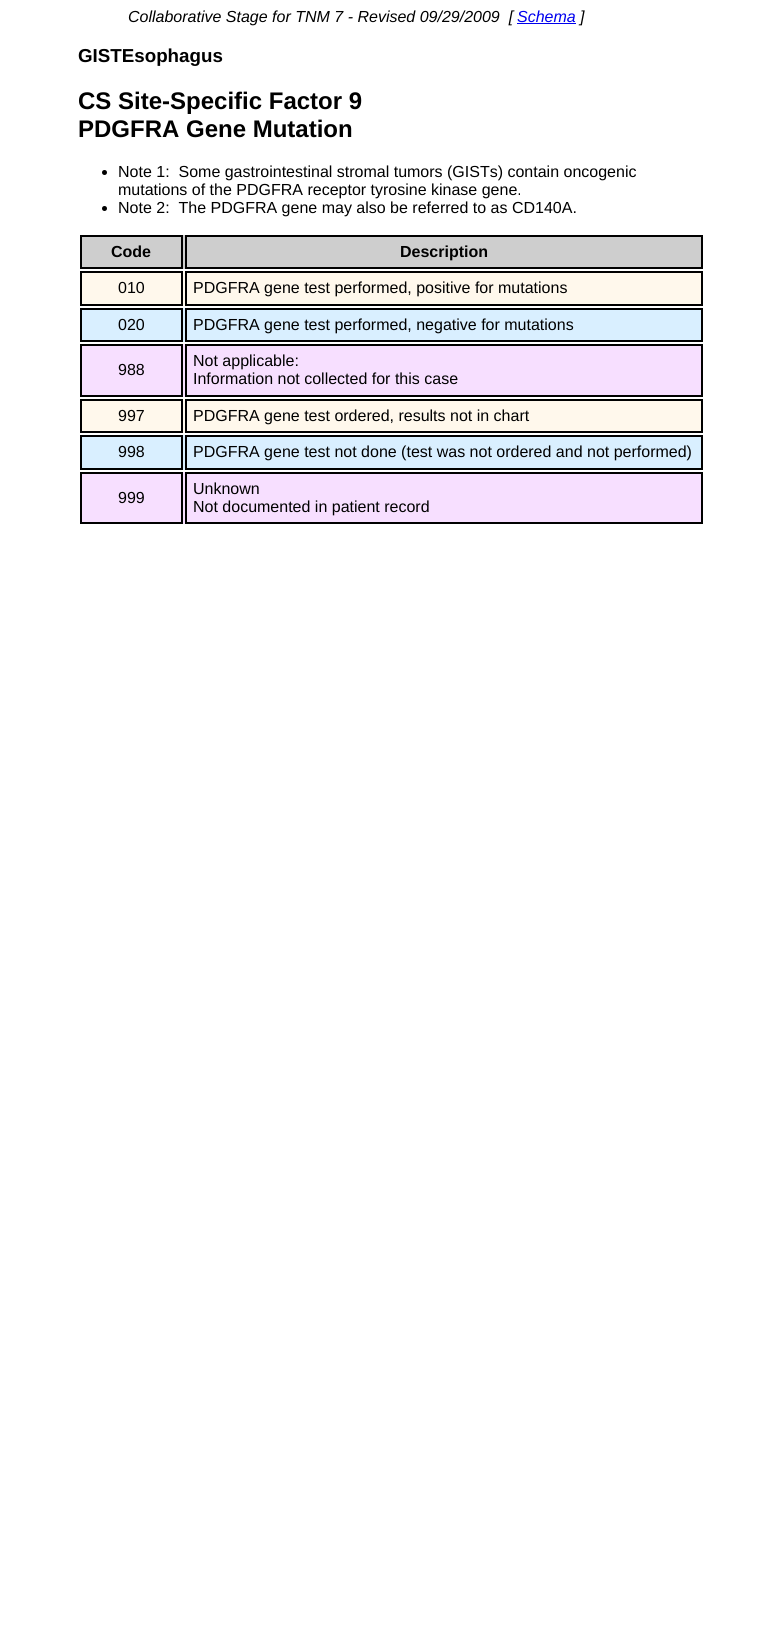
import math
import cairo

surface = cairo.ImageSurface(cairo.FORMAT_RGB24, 774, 1627)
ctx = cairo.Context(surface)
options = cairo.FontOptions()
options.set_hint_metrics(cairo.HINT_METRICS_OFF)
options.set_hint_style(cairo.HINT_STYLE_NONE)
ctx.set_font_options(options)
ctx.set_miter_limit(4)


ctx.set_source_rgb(1, 1, 1)
ctx.paint()
ctx.select_font_face("Liberation Sans", cairo.FONT_SLANT_ITALIC)
ctx.set_font_size(16)
ctx.set_source_rgb(0, 0, 0)
ctx.move_to(128, 22)
ctx.show_text("Collaborative Stage for TNM 7 - Revised 09/29/2009  [")
ctx.set_source_rgb(0, 0, 0.933)
ctx.move_to(517, 22)
ctx.show_text("Schema")
ctx.rectangle(517, 23, 59, 1)
ctx.fill()
ctx.set_source_rgb(0, 0, 0)
ctx.move_to(580, 22)
ctx.show_text("]")
ctx.select_font_face("Liberation Sans", cairo.FONT_SLANT_NORMAL, cairo.FONT_WEIGHT_BOLD)
ctx.set_font_size(18.75)
ctx.move_to(78, 62)
ctx.show_text("GISTEsophagus")
ctx.set_font_size(24)
ctx.move_to(78, 109)
ctx.show_text("CS Site-Specific Factor 9")
ctx.move_to(78, 137)
ctx.show_text("PDGFRA Gene Mutation")
ctx.new_path()
ctx.arc(104.5, 172.5, 2.5, 0, 2 * math.pi)
ctx.fill()
ctx.select_font_face("Liberation Sans")
ctx.set_font_size(16)
ctx.move_to(118, 177)
ctx.show_text("Note 1:  Some gastrointestinal stromal tumors (GISTs) contain oncogenic")
ctx.move_to(118, 195)
ctx.show_text("mutations of the PDGFRA receptor tyrosine kinase gene.")
ctx.new_path()
ctx.arc(104.5, 208.5, 2.5, 0, 2 * math.pi)
ctx.fill()
ctx.move_to(118, 213)
ctx.show_text("Note 2:  The PDGFRA gene may also be referred to as CD140A.")
ctx.set_source_rgb(0.808, 0.808, 0.808)
ctx.rectangle(82, 235, 619, 34)
ctx.fill()
ctx.rectangle(81, 236, 101, 32)
ctx.set_source_rgb(0, 0, 0)
ctx.stroke()
ctx.select_font_face("Liberation Sans", cairo.FONT_SLANT_NORMAL, cairo.FONT_WEIGHT_BOLD)
ctx.move_to(111, 257)
ctx.show_text("Code")
ctx.rectangle(186, 236, 516, 32)
ctx.stroke()
ctx.move_to(400, 257)
ctx.show_text("Description")
ctx.set_source_rgb(1, 0.969, 0.925)
ctx.rectangle(82, 271, 619, 35)
ctx.fill()
ctx.rectangle(81, 272, 101, 33)
ctx.set_source_rgb(0, 0, 0)
ctx.stroke()
ctx.select_font_face("Liberation Sans")
ctx.move_to(118, 293)
ctx.show_text("010")
ctx.rectangle(186, 272, 516, 33)
ctx.stroke()
ctx.move_to(193, 293)
ctx.show_text("PDGFRA gene test performed, positive for mutations")
ctx.set_source_rgb(0.851, 0.937, 1)
ctx.rectangle(82, 308, 619, 34)
ctx.fill()
ctx.rectangle(81, 309, 101, 32)
ctx.set_source_rgb(0, 0, 0)
ctx.stroke()
ctx.move_to(118, 330)
ctx.show_text("020")
ctx.rectangle(186, 309, 516, 32)
ctx.stroke()
ctx.move_to(193, 330)
ctx.show_text("PDGFRA gene test performed, negative for mutations")
ctx.set_source_rgb(0.965, 0.875, 1)
ctx.rectangle(82, 344, 619, 53)
ctx.fill()
ctx.rectangle(81, 345, 101, 51)
ctx.set_source_rgb(0, 0, 0)
ctx.stroke()
ctx.move_to(118, 375)
ctx.show_text("988")
ctx.rectangle(186, 345, 516, 51)
ctx.stroke()
ctx.move_to(193, 366)
ctx.show_text("Not applicable:")
ctx.move_to(193, 384)
ctx.show_text("Information not collected for this case")
ctx.set_source_rgb(1, 0.969, 0.925)
ctx.rectangle(82, 399, 619, 34)
ctx.fill()
ctx.rectangle(81, 400, 101, 32)
ctx.set_source_rgb(0, 0, 0)
ctx.stroke()
ctx.move_to(118, 421)
ctx.show_text("997")
ctx.rectangle(186, 400, 516, 32)
ctx.stroke()
ctx.move_to(193, 421)
ctx.show_text("PDGFRA gene test ordered, results not in chart")
ctx.set_source_rgb(0.851, 0.937, 1)
ctx.rectangle(82, 435, 619, 35)
ctx.fill()
ctx.rectangle(81, 436, 101, 33)
ctx.set_source_rgb(0, 0, 0)
ctx.stroke()
ctx.move_to(118, 457)
ctx.show_text("998")
ctx.rectangle(186, 436, 516, 33)
ctx.stroke()
ctx.move_to(193, 457)
ctx.show_text("PDGFRA gene test not done (test was not ordered and not performed)")
ctx.set_source_rgb(0.965, 0.875, 1)
ctx.rectangle(82, 472, 619, 52)
ctx.fill()
ctx.rectangle(81, 473, 101, 50)
ctx.set_source_rgb(0, 0, 0)
ctx.stroke()
ctx.move_to(118, 503)
ctx.show_text("999")
ctx.rectangle(186, 473, 516, 50)
ctx.stroke()
ctx.move_to(193, 494)
ctx.show_text("Unknown")
ctx.move_to(193, 512)
ctx.show_text("Not documented in patient record")
surface.write_to_png("page.png")
